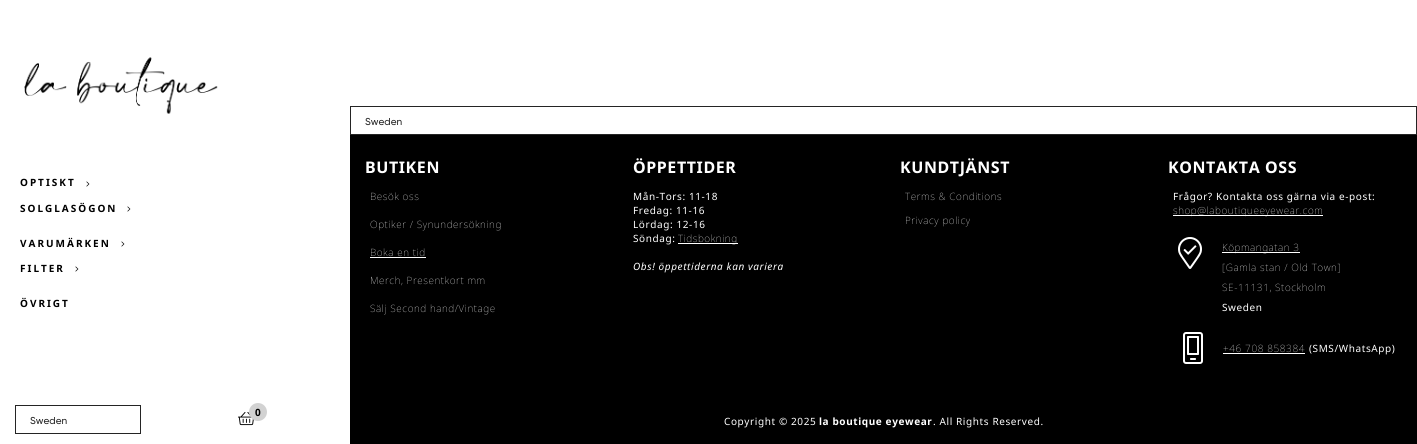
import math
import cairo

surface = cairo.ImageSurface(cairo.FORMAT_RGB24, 1417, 444)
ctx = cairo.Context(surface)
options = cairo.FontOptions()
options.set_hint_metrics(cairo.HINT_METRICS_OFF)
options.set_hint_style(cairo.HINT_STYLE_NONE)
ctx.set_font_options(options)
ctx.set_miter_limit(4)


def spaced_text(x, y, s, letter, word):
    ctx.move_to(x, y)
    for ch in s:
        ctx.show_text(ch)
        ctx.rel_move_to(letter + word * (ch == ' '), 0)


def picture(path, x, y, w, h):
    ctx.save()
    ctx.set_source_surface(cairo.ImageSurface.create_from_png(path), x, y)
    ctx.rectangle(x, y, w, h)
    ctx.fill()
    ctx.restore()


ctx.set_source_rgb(1, 1, 1)
ctx.paint()
picture("img1.png", 24, 57, 194, 57)
ctx.select_font_face("Noto Sans", cairo.FONT_SLANT_NORMAL, cairo.FONT_WEIGHT_BOLD)
ctx.set_font_size(10)
ctx.set_source_rgb(0, 0, 0)
spaced_text(20, 186, "OPTISKT", 2, 0)
picture("img2.png", 86, 181, 4, 6)
spaced_text(20, 212, "SOLGLASÖGON", 2, 0)
picture("img2.png", 127, 206, 4, 6)
spaced_text(20, 247, "VARUMÄRKEN", 2, 0)
picture("img2.png", 121, 241, 4, 6)
spaced_text(20, 272, "FILTER", 2, 0)
picture("img2.png", 75, 266, 4, 6)
spaced_text(20, 307, "ÖVRIGT", 2, 0)
picture("img3.png", 238, 412, 16, 14)
ctx.set_source_rgb(0.824, 0.824, 0.824)
ctx.arc(258, 412, 9, 0, 2 * math.pi)
ctx.fill()
ctx.set_source_rgb(0, 0, 0)
spaced_text(255, 416, "0", 0.6, 0)
ctx.rectangle(15.5, 405.5, 125, 28)
ctx.set_source_rgb(0.141, 0.141, 0.141)
ctx.set_line_width(1)
ctx.stroke()
ctx.select_font_face("Gilroy Medium")
ctx.move_to(30, 424)
ctx.show_text("Sweden")
ctx.rectangle(350.5, 106.5, 1066, 28)
ctx.stroke()
ctx.move_to(365, 125)
ctx.show_text("Sweden")
ctx.set_source_rgb(0, 0, 0)
ctx.rectangle(350, 135, 1067, 309)
ctx.fill()
ctx.select_font_face("Noto Sans", cairo.FONT_SLANT_NORMAL, cairo.FONT_WEIGHT_BOLD)
ctx.set_font_size(16)
ctx.set_source_rgb(1, 1, 1)
spaced_text(365, 173, "BUTIKEN", 0.6, 0)
ctx.select_font_face("Noto Sans Thin")
ctx.set_font_size(10)
spaced_text(370, 200, "Besök oss", 0.6, 0)
spaced_text(370, 228, "Optiker / Synundersökning", 0.6, 0)
spaced_text(370, 256, "Boka en tid", 0.6, 0)
ctx.rectangle(370, 257, 56, 1)
ctx.fill()
spaced_text(370, 284, "Merch, Presentkort mm", 0.6, 0)
spaced_text(370, 312, "Sälj Second hand/Vintage", 0.6, 0)
ctx.select_font_face("Noto Sans", cairo.FONT_SLANT_NORMAL, cairo.FONT_WEIGHT_BOLD)
ctx.set_font_size(16)
spaced_text(633, 173, "ÖPPETTIDER", 0.6, 0)
ctx.select_font_face("Noto Sans")
ctx.set_font_size(10)
spaced_text(633, 200, "Mån-Tors: 11-18", 0.6, 0)
spaced_text(633, 214, "Fredag: 11-16", 0.6, 0)
spaced_text(633, 228, "Lördag: 12-16", 0.6, 0)
spaced_text(633, 242, "Söndag:", 0.6, 0)
ctx.rectangle(678, 243, 60, 1)
ctx.fill()
ctx.select_font_face("Noto Sans Thin")
spaced_text(678, 242, "Tidsbokning", 0.6, 0)
ctx.select_font_face("Noto Sans", cairo.FONT_SLANT_ITALIC)
spaced_text(633, 270, "Obs! öppettiderna kan variera", 0.6, 0)
ctx.select_font_face("Noto Sans", cairo.FONT_SLANT_NORMAL, cairo.FONT_WEIGHT_BOLD)
ctx.set_font_size(16)
spaced_text(900, 173, "KUNDTJÄNST", 0.6, 0)
ctx.select_font_face("Noto Sans Thin")
ctx.set_font_size(10)
spaced_text(905, 200, "Terms & Conditions", 0.6, 0)
spaced_text(905, 224, "Privacy policy", 0.6, 0)
ctx.select_font_face("Noto Sans", cairo.FONT_SLANT_NORMAL, cairo.FONT_WEIGHT_BOLD)
ctx.set_font_size(16)
spaced_text(1168, 173, "KONTAKTA OSS", 0.6, 0)
ctx.select_font_face("Noto Sans")
ctx.set_font_size(10)
spaced_text(1173, 200, "Frågor? Kontakta oss gärna via e-post:", 0.6, 0)
ctx.rectangle(1173, 215, 150, 1)
ctx.fill()
ctx.select_font_face("Noto Sans Thin")
spaced_text(1173, 214, "shop@laboutiqueeyewear.com", 0.6, 0)
picture("img4.png", 1178, 237, 24, 32)
ctx.rectangle(1222, 252, 78, 1)
ctx.fill()
spaced_text(1222, 251, "Köpmangatan 3", 0.6, 0)
spaced_text(1222, 271, "[Gamla stan / Old Town]", 0.6, 0)
spaced_text(1222, 291, "SE-11131, Stockholm", 0.6, 0)
ctx.select_font_face("Noto Sans")
spaced_text(1222, 311, "Sweden", 0.6, 0)
picture("img5.png", 1183, 332, 20, 32)
ctx.select_font_face("Noto Sans Thin")
spaced_text(1223, 352, "+46 708 858384", 0.6, 0)
ctx.rectangle(1223, 353, 82, 1)
ctx.fill()
ctx.select_font_face("Noto Sans")
spaced_text(1309, 352, "(SMS/WhatsApp)", 0.6, 0)
spaced_text(724, 425, "Copyright © 2025", 0.6, 0)
ctx.select_font_face("Noto Sans", cairo.FONT_SLANT_NORMAL, cairo.FONT_WEIGHT_BOLD)
spaced_text(819, 425, "la boutique eyewear", 0.6, 0)
ctx.select_font_face("Noto Sans")
spaced_text(933, 425, ". All Rights Reserved.", 0.6, 0)
surface.write_to_png("page.png")
